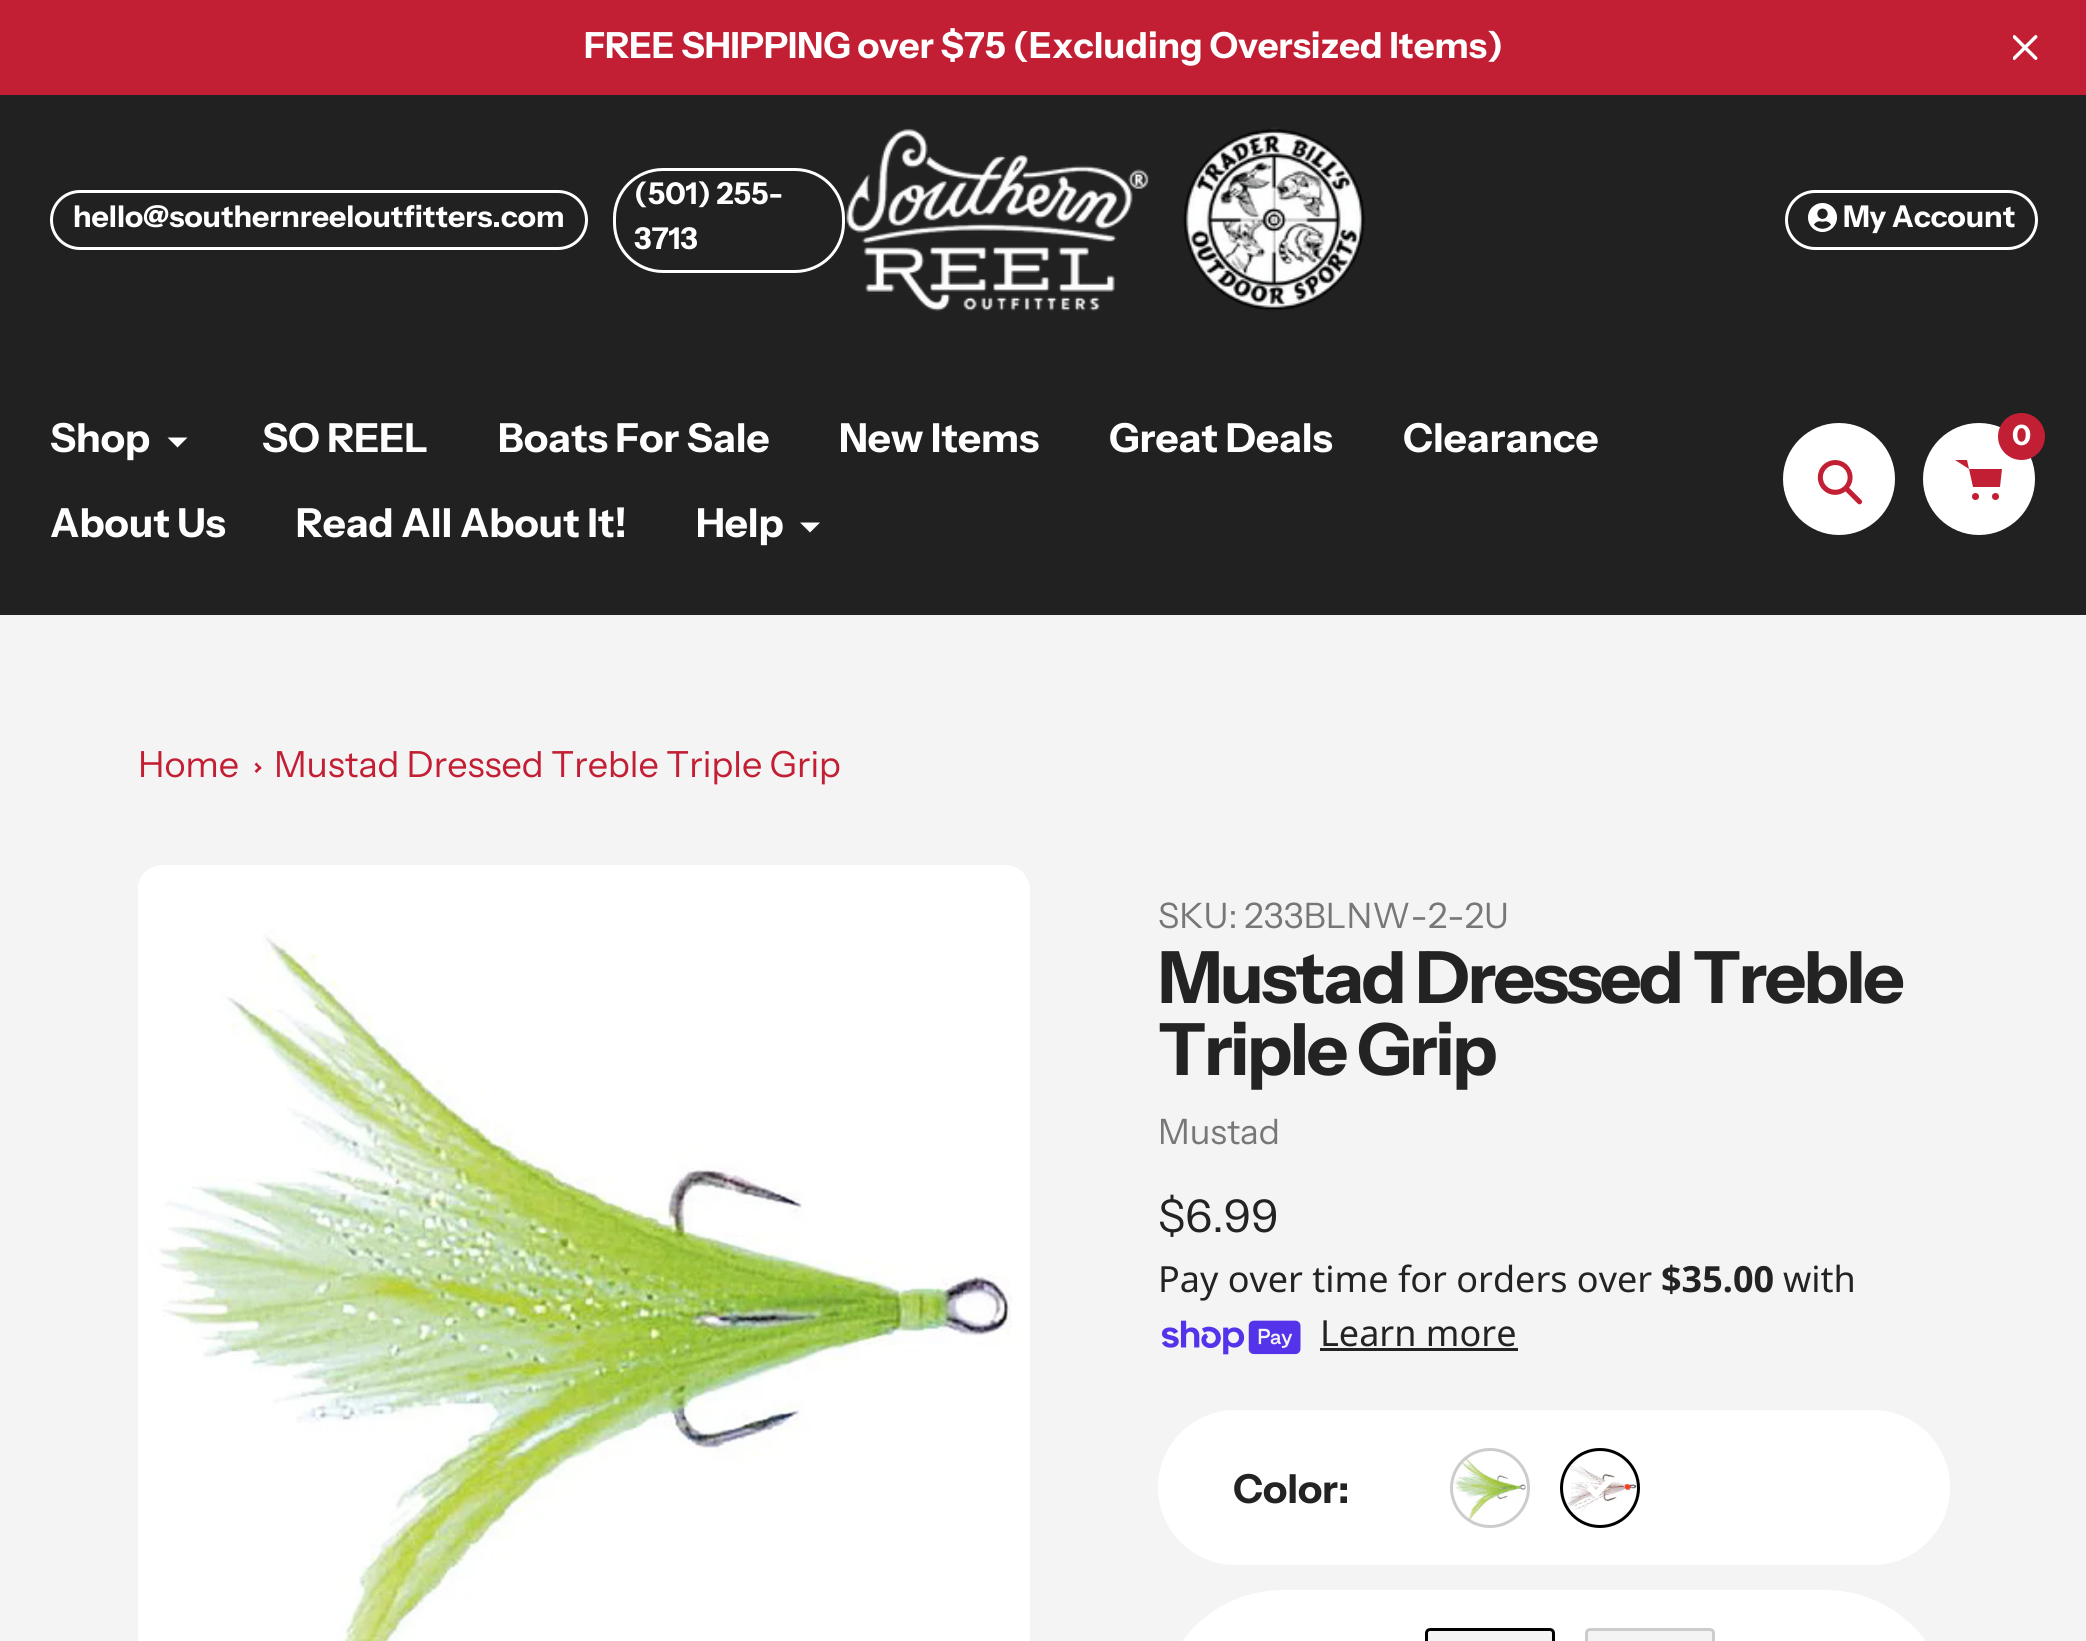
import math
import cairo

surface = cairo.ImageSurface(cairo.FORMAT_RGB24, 2086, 1641)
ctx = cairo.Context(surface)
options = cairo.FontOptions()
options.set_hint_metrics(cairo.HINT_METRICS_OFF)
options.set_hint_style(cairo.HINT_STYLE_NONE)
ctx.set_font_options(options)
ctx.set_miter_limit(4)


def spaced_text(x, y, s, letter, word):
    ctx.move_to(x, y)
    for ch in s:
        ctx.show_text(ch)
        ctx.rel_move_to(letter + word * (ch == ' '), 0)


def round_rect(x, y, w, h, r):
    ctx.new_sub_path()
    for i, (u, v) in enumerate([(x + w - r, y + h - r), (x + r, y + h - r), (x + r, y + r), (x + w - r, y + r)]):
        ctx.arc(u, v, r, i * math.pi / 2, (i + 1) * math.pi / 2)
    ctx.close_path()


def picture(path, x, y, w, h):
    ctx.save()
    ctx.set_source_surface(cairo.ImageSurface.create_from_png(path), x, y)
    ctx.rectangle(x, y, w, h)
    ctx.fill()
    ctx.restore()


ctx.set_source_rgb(0.957, 0.957, 0.957)
ctx.paint()
ctx.set_source_rgb(0.765, 0.122, 0.204)
ctx.rectangle(0, 0, 2086, 95)
ctx.fill()
ctx.select_font_face("Instrument Sans", cairo.FONT_SLANT_NORMAL, cairo.FONT_WEIGHT_BOLD)
ctx.set_font_size(36)
ctx.set_source_rgb(1, 1, 1)
ctx.move_to(584, 58)
ctx.show_text("FREE SHIPPING over $75 (Excluding Oversized Items)")
picture("img1.png", 2013, 35, 25, 25)
ctx.set_source_rgb(0.129, 0.129, 0.129)
ctx.rectangle(0, 95, 2086, 520)
ctx.fill()
round_rect(51.5, 191.5, 535, 57, 28.5)
ctx.set_source_rgb(1, 1, 1)
ctx.set_line_width(3)
ctx.stroke()
ctx.set_font_size(30)
ctx.move_to(73, 227)
ctx.show_text("hello@southernreeloutfitters.com")
round_rect(614.5, 169.5, 229, 102, 48.5)
ctx.stroke()
ctx.move_to(634, 204)
ctx.show_text("(501) 255-")
ctx.move_to(634, 249)
ctx.show_text("3713")
picture("img2.png", 846, 127, 519, 185)
round_rect(1786.5, 191.5, 250, 57, 28.5)
ctx.stroke()
picture("img3.png", 1808, 203, 29, 29)
ctx.move_to(1843, 227)
ctx.show_text("My Account")
ctx.set_font_size(40)
ctx.move_to(50, 452)
ctx.show_text("Shop")
ctx.new_path()
ctx.move_to(187.5, 437.5)
ctx.line_to(177.5, 447.5)
ctx.line_to(167.5, 437.5)
ctx.fill()
ctx.move_to(262, 452)
ctx.show_text("SO REEL")
ctx.move_to(498, 452)
ctx.show_text("Boats For Sale")
ctx.move_to(839, 452)
ctx.show_text("New Items")
ctx.move_to(1109, 452)
ctx.show_text("Great Deals")
ctx.move_to(1403, 452)
ctx.show_text("Clearance")
ctx.move_to(50, 537)
ctx.show_text("About Us")
ctx.move_to(296, 537)
ctx.show_text("Read All About It!")
ctx.move_to(696, 537)
ctx.show_text("Help")
ctx.new_path()
ctx.move_to(820, 522.5)
ctx.line_to(810, 532.5)
ctx.line_to(800, 522.5)
ctx.fill()
ctx.arc(1839, 479, 56, 0, 2 * math.pi)
ctx.fill()
picture("img4.png", 1817, 460, 46, 45)
ctx.arc(1979, 479, 56, 0, 2 * math.pi)
ctx.fill()
ctx.set_source_rgb(0.765, 0.122, 0.204)
ctx.arc(2021.5, 436.5, 23.5, 0, 2 * math.pi)
ctx.fill()
ctx.set_font_size(28)
ctx.set_source_rgb(1, 1, 1)
ctx.move_to(2012, 445)
ctx.show_text("0")
ctx.set_source_rgb(0.765, 0.122, 0.204)
ctx.new_path()
ctx.arc(1975.5, 496.5, 3.5, 0, 2 * math.pi)
ctx.fill()
ctx.arc(1995.5, 496.5, 3.5, 0, 2 * math.pi)
ctx.fill()
ctx.set_fill_rule(cairo.FILL_RULE_EVEN_ODD)
ctx.new_path()
ctx.move_to(1969, 469)
ctx.line_to(2002, 469)
ctx.line_to(2000, 487)
ctx.line_to(1973, 487)
ctx.line_to(1967, 460)
ctx.line_to(1955, 460)
ctx.fill()
ctx.select_font_face("Instrument Sans")
ctx.set_font_size(36)
ctx.move_to(138, 777)
ctx.show_text("Home")
ctx.set_fill_rule(cairo.FILL_RULE_WINDING)
ctx.new_path()
ctx.move_to(256.5, 762.5)
ctx.line_to(261.5, 768)
ctx.line_to(260, 769.5)
ctx.line_to(254.5, 764.5)
ctx.close_path()
ctx.fill()
ctx.new_path()
ctx.move_to(260, 766)
ctx.line_to(261.5, 768)
ctx.line_to(256.5, 773)
ctx.line_to(254.5, 771)
ctx.close_path()
ctx.fill()
ctx.move_to(274, 777)
ctx.show_text("Mustad Dressed Treble Triple Grip")
picture("img5.png", 138, 865, 892, 776)
ctx.set_font_size(35)
ctx.set_source_rgb(0.467, 0.467, 0.467)
ctx.move_to(1158, 928)
ctx.show_text("SKU: 233BLNW-2-2U")
ctx.select_font_face("Instrument Sans", cairo.FONT_SLANT_NORMAL, cairo.FONT_WEIGHT_BOLD)
ctx.set_font_size(72)
ctx.set_source_rgb(0.137, 0.137, 0.137)
spaced_text(1158, 1003, "Mustad Dressed Treble", -2.5, 0)
spaced_text(1158, 1075, "Triple Grip", -2.5, 0)
ctx.select_font_face("Instrument Sans")
ctx.set_font_size(35)
ctx.set_source_rgb(0.467, 0.467, 0.467)
ctx.move_to(1158, 1144)
ctx.show_text("Mustad")
ctx.set_font_size(45)
ctx.set_source_rgb(0.137, 0.137, 0.137)
ctx.move_to(1158, 1232)
ctx.show_text("$6.99")
ctx.select_font_face("Noto Sans")
ctx.set_font_size(36)
ctx.move_to(1158, 1292)
ctx.show_text("Pay over time for orders over")
ctx.select_font_face("Noto Sans", cairo.FONT_SLANT_NORMAL, cairo.FONT_WEIGHT_BOLD)
ctx.move_to(1661, 1292)
ctx.show_text("$35.00")
ctx.select_font_face("Noto Sans")
ctx.move_to(1783, 1292)
ctx.show_text("with")
picture("img6.png", 1161, 1320, 140, 35)
ctx.move_to(1320, 1346)
ctx.show_text("Learn more")
ctx.rectangle(1320, 1348, 198, 3)
ctx.fill()
ctx.set_source_rgb(1, 1, 1)
round_rect(1158, 1410, 792, 155, 77.5)
ctx.fill()
ctx.select_font_face("Instrument Sans", cairo.FONT_SLANT_NORMAL, cairo.FONT_WEIGHT_BOLD)
ctx.set_font_size(40)
ctx.set_source_rgb(0.137, 0.137, 0.137)
ctx.move_to(1233, 1503)
ctx.show_text("Color:")
picture("img7.png", 1454, 1457, 72, 64)
ctx.arc(1490, 1488, 38.5, 0, 2 * math.pi)
ctx.set_source_rgb(0.8, 0.8, 0.8)
ctx.stroke()
picture("img8.png", 1566, 1465, 71, 49)
ctx.arc(1600, 1488, 38.5, 0, 2 * math.pi)
ctx.set_source_rgb(0, 0, 0)
ctx.stroke()
ctx.set_source_rgb(1, 1, 1)
ctx.new_path()
ctx.move_to(1596, 1498.5)
ctx.line_to(1586.5, 1489)
ctx.line_to(1590.5, 1485)
ctx.line_to(1596, 1490)
ctx.line_to(1609.5, 1476.5)
ctx.line_to(1613.5, 1480.5)
ctx.close_path()
ctx.fill()
round_rect(1158, 1590, 792, 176, 125)
ctx.fill()
ctx.set_source_rgb(0.957, 0.957, 0.957)
round_rect(1426.5, 1629.5, 127, 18, 3.5)
ctx.fill_preserve()
ctx.set_source_rgb(0, 0, 0)
ctx.stroke()
ctx.set_source_rgb(0.957, 0.957, 0.957)
round_rect(1586.5, 1629.5, 127, 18, 3.5)
ctx.fill_preserve()
ctx.set_source_rgb(0.8, 0.8, 0.8)
ctx.stroke()
surface.write_to_png("page.png")
